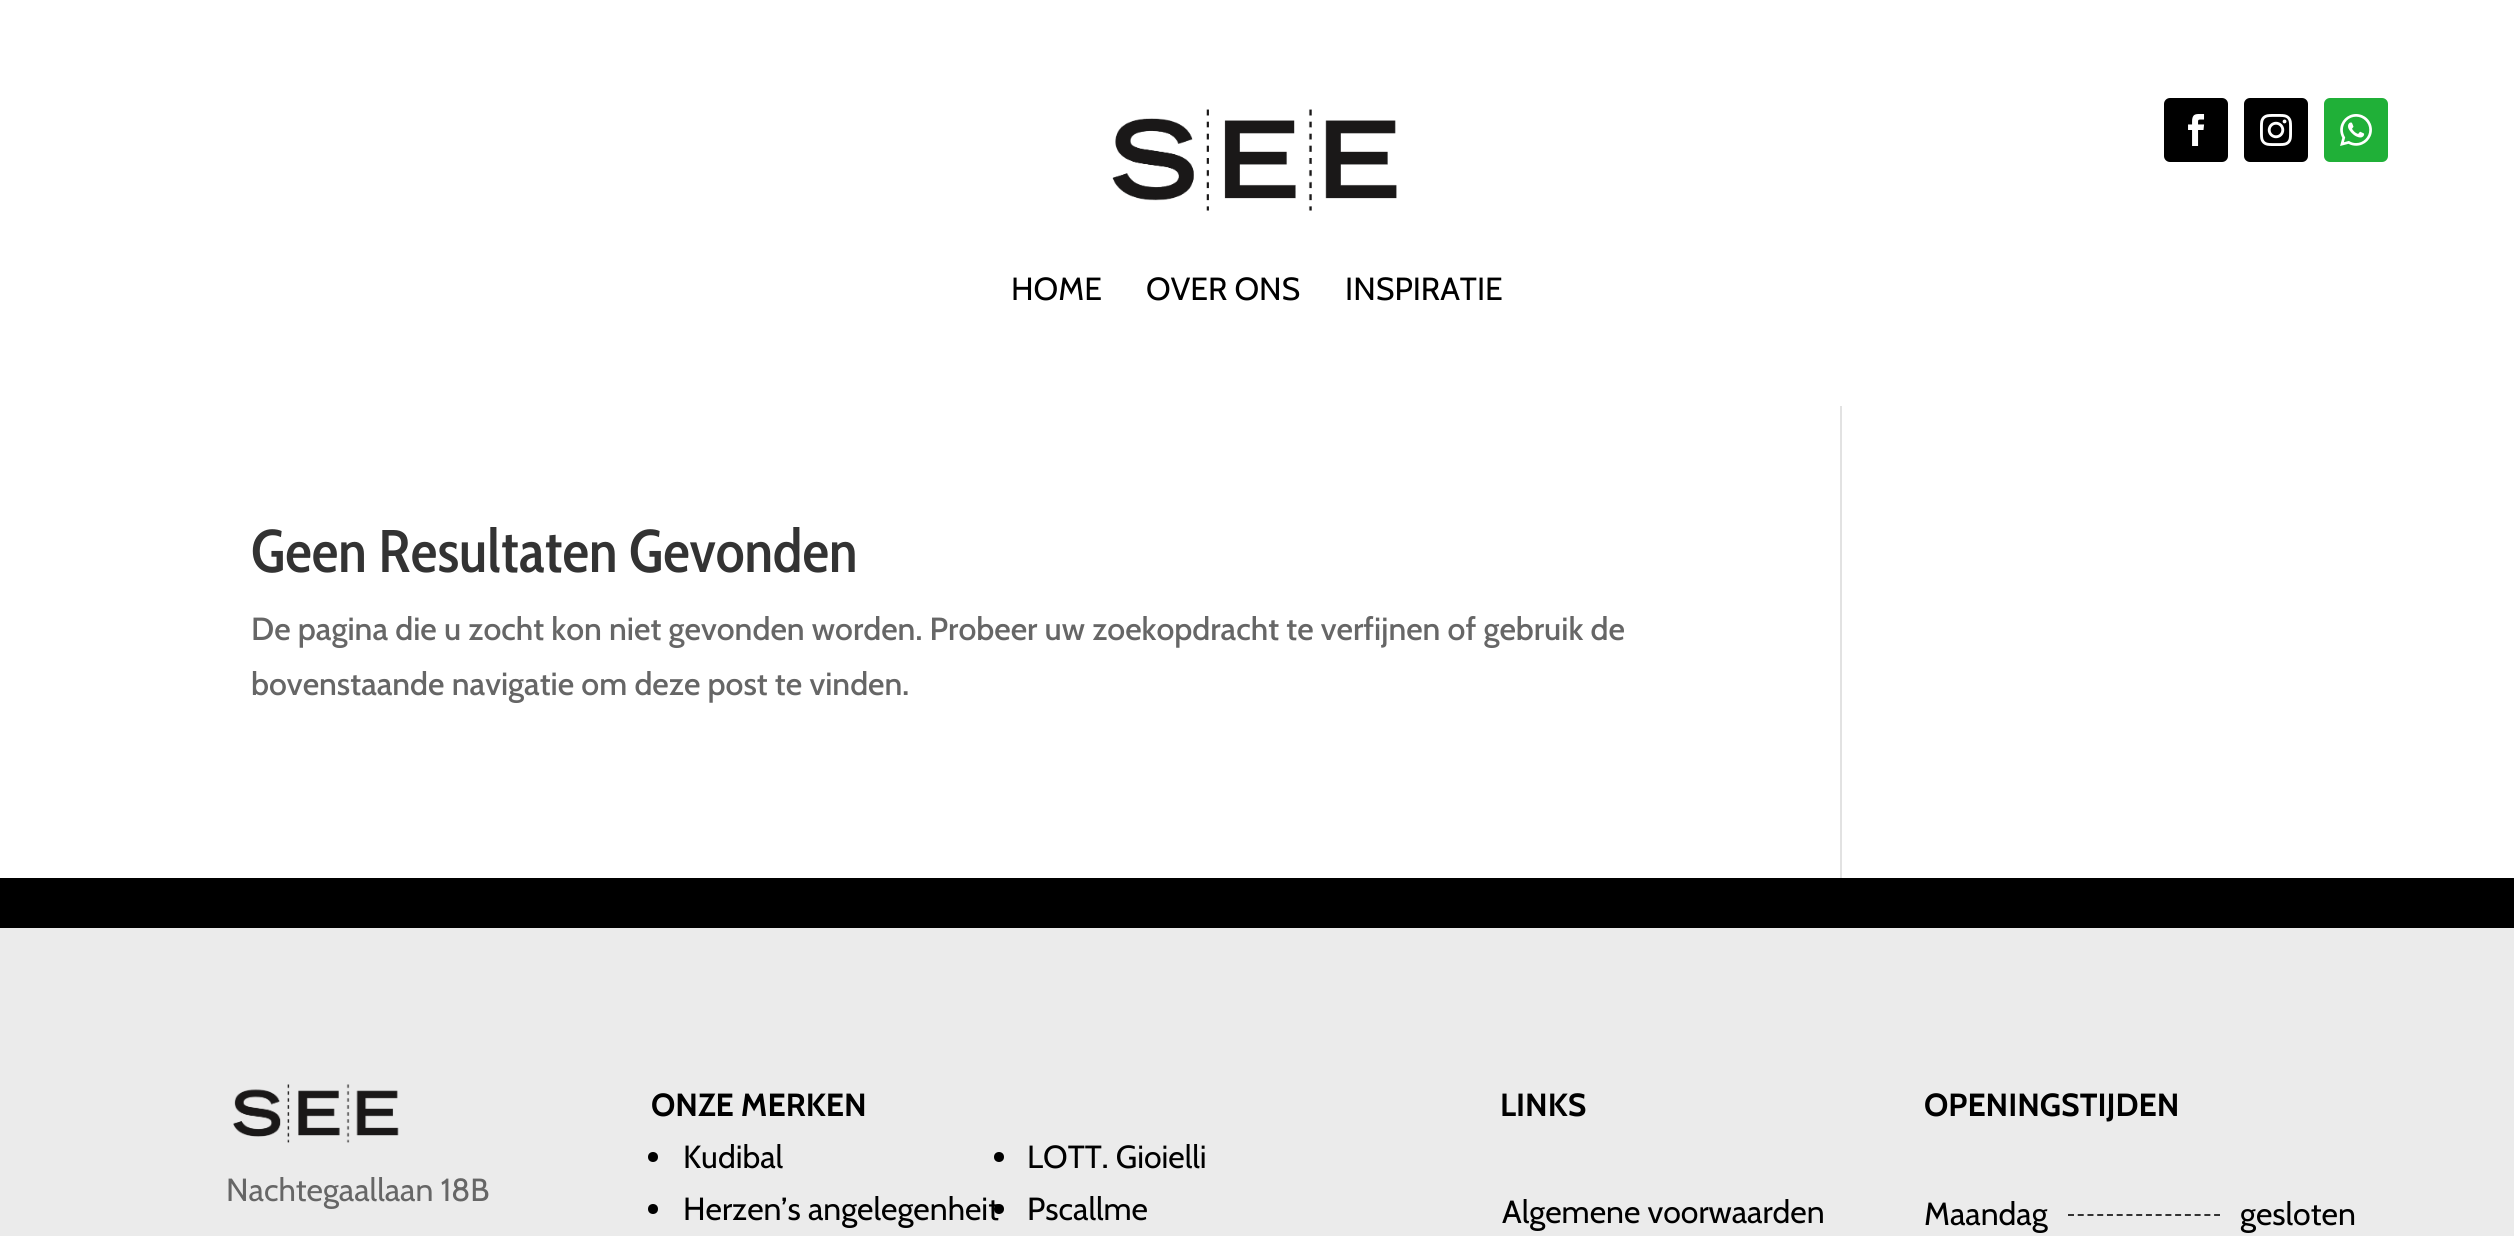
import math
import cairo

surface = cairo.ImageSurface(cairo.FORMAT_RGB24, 2514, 1236)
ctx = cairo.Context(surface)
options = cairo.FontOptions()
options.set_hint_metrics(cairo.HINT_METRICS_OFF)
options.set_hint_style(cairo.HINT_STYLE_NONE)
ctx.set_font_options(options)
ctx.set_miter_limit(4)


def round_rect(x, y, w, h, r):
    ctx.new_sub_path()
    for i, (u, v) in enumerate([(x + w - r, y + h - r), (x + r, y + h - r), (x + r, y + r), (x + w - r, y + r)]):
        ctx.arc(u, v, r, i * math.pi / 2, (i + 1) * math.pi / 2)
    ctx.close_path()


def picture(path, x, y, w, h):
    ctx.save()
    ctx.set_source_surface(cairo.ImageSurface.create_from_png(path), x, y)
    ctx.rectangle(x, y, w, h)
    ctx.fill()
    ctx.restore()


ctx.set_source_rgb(1, 1, 1)
ctx.paint()
ctx.set_source_rgb(0, 0, 0)
round_rect(2164, 98, 64, 64, 6)
ctx.fill()
picture("img1.png", 2188, 114, 17, 32)
round_rect(2244, 98, 64, 64, 6)
ctx.fill()
picture("img2.png", 2260, 114, 32, 32)
ctx.set_source_rgb(0.125, 0.69, 0.22)
round_rect(2324, 98, 64, 64, 6)
ctx.fill()
picture("img3.png", 2340, 114, 32, 32)
picture("img4.png", 1112, 109, 285, 102)
ctx.select_font_face("Cabin")
ctx.set_font_size(32)
ctx.set_source_rgb(0, 0, 0)
ctx.move_to(1011, 300)
ctx.show_text("HOME")
ctx.move_to(1146, 300)
ctx.show_text("OVER ONS")
ctx.move_to(1345, 300)
ctx.show_text("INSPIRATIE")
ctx.select_font_face("Cabin Condensed Medium")
ctx.set_font_size(60)
ctx.set_source_rgb(0.2, 0.2, 0.2)
ctx.move_to(251, 572)
ctx.show_text("Geen Resultaten Gevonden")
ctx.select_font_face("Cabin Medium")
ctx.set_font_size(32)
ctx.set_source_rgb(0.4, 0.4, 0.4)
ctx.move_to(251, 640)
ctx.show_text("De pagina die u zocht kon niet gevonden worden. Probeer uw zoekopdracht te verfijnen of gebruik de")
ctx.move_to(251, 695)
ctx.show_text("bovenstaande navigatie om deze post te vinden.")
ctx.set_source_rgb(0.886, 0.886, 0.886)
ctx.rectangle(1840, 406, 2, 472)
ctx.fill()
ctx.set_source_rgb(0.918, 0.918, 0.918)
ctx.rectangle(0, 928, 2514, 308)
ctx.fill()
ctx.set_source_rgb(0, 0, 0)
ctx.rectangle(0, 878, 2514, 50)
ctx.fill()
picture("img5.png", 233, 1084, 166, 59)
ctx.select_font_face("Cabin")
ctx.set_source_rgb(0.4, 0.4, 0.4)
ctx.move_to(226, 1201)
ctx.show_text("Nachtegaallaan 18B")
ctx.select_font_face("Cabin", cairo.FONT_SLANT_NORMAL, cairo.FONT_WEIGHT_BOLD)
ctx.set_source_rgb(0, 0, 0)
ctx.move_to(651, 1116)
ctx.show_text("ONZE MERKEN")
ctx.new_path()
ctx.arc(653, 1157, 5, 0, 2 * math.pi)
ctx.fill()
ctx.select_font_face("Cabin")
ctx.move_to(683, 1168)
ctx.show_text("Kudibal")
ctx.new_path()
ctx.arc(653, 1209, 5, 0, 2 * math.pi)
ctx.fill()
ctx.move_to(683, 1220)
ctx.show_text("Herzen’s angelegenheit")
ctx.new_path()
ctx.arc(999, 1157, 5, 0, 2 * math.pi)
ctx.fill()
ctx.move_to(1027, 1168)
ctx.show_text("LOTT. Gioielli")
ctx.new_path()
ctx.arc(999, 1209, 5, 0, 2 * math.pi)
ctx.fill()
ctx.move_to(1027, 1220)
ctx.show_text("Pscallme")
ctx.select_font_face("Cabin", cairo.FONT_SLANT_NORMAL, cairo.FONT_WEIGHT_BOLD)
ctx.move_to(1500, 1116)
ctx.show_text("LINKS")
ctx.select_font_face("Cabin")
ctx.move_to(1502, 1223)
ctx.show_text("Algemene voorwaarden")
ctx.select_font_face("Cabin", cairo.FONT_SLANT_NORMAL, cairo.FONT_WEIGHT_BOLD)
ctx.move_to(1924, 1116)
ctx.show_text("OPENINGSTIJDEN")
ctx.select_font_face("Cabin")
ctx.move_to(1924, 1225)
ctx.show_text("Maandag")
ctx.new_path()
ctx.move_to(2068, 1215)
ctx.line_to(2220, 1215)
ctx.set_source_rgb(0.2, 0.2, 0.2)
ctx.set_dash([6, 3.74])
ctx.stroke()
ctx.set_source_rgb(0, 0, 0)
ctx.move_to(2240, 1225)
ctx.show_text("gesloten")
surface.write_to_png("page.png")
